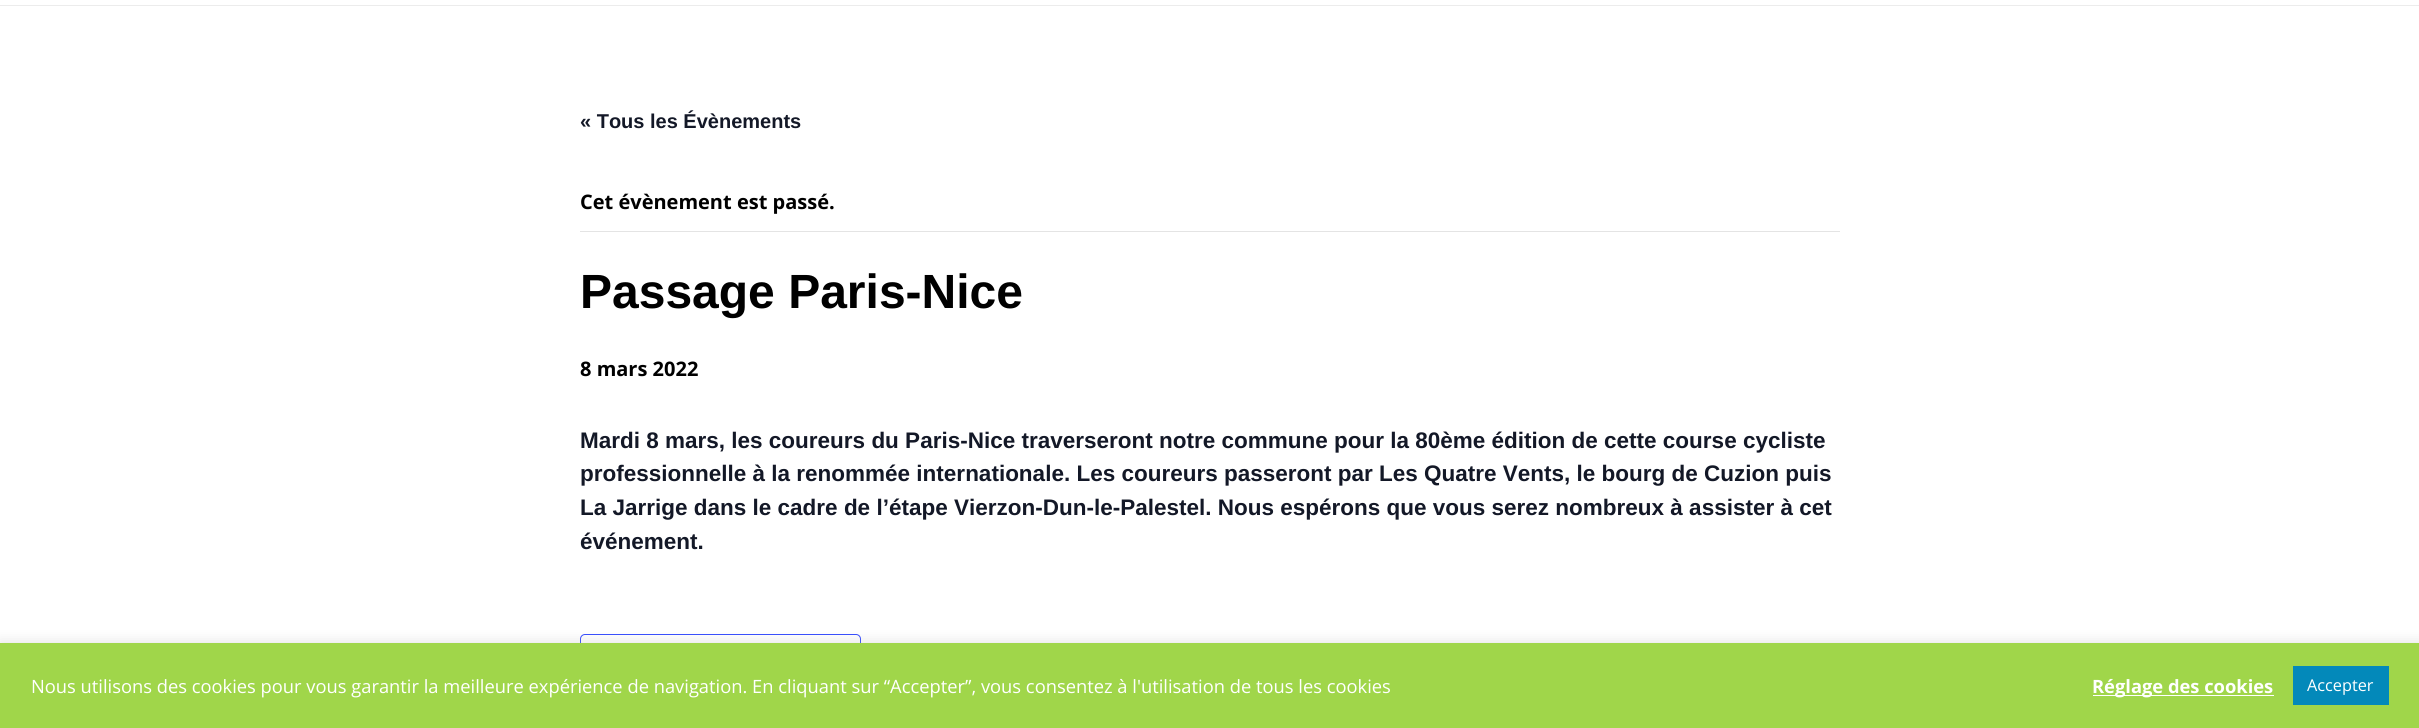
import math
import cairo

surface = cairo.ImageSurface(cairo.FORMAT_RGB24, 2419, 728)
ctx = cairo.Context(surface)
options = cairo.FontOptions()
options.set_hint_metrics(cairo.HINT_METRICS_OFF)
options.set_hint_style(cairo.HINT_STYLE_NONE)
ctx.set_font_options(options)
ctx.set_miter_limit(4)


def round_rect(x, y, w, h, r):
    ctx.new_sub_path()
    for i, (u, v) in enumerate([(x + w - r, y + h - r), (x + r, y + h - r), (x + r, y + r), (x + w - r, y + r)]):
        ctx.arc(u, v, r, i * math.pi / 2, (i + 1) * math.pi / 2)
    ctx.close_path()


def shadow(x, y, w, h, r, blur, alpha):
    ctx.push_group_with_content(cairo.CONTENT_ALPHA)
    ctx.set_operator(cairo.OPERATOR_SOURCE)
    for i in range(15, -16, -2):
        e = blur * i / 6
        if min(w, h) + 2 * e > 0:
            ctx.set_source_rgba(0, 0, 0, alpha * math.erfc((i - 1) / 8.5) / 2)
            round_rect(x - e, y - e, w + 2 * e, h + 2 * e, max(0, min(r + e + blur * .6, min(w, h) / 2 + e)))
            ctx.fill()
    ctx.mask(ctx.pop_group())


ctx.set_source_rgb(1, 1, 1)
ctx.paint()
ctx.set_source_rgb(0.922, 0.922, 0.922)
ctx.rectangle(0, 5, 2419, 1)
ctx.fill()
ctx.select_font_face("Liberation Sans", cairo.FONT_SLANT_NORMAL, cairo.FONT_WEIGHT_BOLD)
ctx.set_font_size(20)
ctx.set_source_rgb(0.078, 0.094, 0.153)
ctx.move_to(580, 128)
ctx.show_text("« Tous les Évènements")
ctx.set_source_rgb(0.894, 0.894, 0.894)
ctx.rectangle(580, 231, 1260, 1)
ctx.fill()
ctx.select_font_face("Open Sans", cairo.FONT_SLANT_NORMAL, cairo.FONT_WEIGHT_BOLD)
ctx.set_source_rgb(0, 0, 0)
ctx.move_to(580, 209)
ctx.show_text("Cet évènement est passé.")
ctx.select_font_face("Liberation Sans", cairo.FONT_SLANT_NORMAL, cairo.FONT_WEIGHT_BOLD)
ctx.set_font_size(48)
ctx.move_to(580, 308)
ctx.show_text("Passage Paris-Nice")
ctx.select_font_face("Open Sans", cairo.FONT_SLANT_NORMAL, cairo.FONT_WEIGHT_BOLD)
ctx.set_font_size(20)
ctx.move_to(580, 376)
ctx.show_text("8 mars 2022")
ctx.select_font_face("Liberation Sans", cairo.FONT_SLANT_NORMAL, cairo.FONT_WEIGHT_BOLD)
ctx.set_font_size(22.5)
ctx.set_source_rgb(0.078, 0.094, 0.153)
ctx.move_to(580, 448)
ctx.show_text("Mardi 8 mars, les coureurs du Paris-Nice traverseront notre commune pour la 80ème édition de cette course cycliste")
ctx.move_to(580, 481)
ctx.show_text("professionnelle à la renommée internationale. Les coureurs passeront par Les Quatre Vents, le bourg de Cuzion puis")
ctx.move_to(580, 515)
ctx.show_text("La Jarrige dans le cadre de l’étape Vierzon-Dun-le-Palestel. Nous espérons que vous serez nombreux à assister à cet")
ctx.move_to(580, 549)
ctx.show_text("événement.")
round_rect(580.5, 634.5, 280, 50, 4.5)
ctx.set_source_rgb(0.2, 0.29, 1)
ctx.set_line_width(1)
ctx.stroke()
ctx.set_source_rgb(0.675, 0.671, 0.671)
shadow(0, 641, 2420, 87, 0, 6, 0.3)
ctx.set_source_rgb(0.627, 0.839, 0.29)
ctx.rectangle(0, 643, 2419, 85)
ctx.fill()
ctx.select_font_face("Open Sans")
ctx.set_font_size(18.33)
ctx.set_source_rgb(1, 1, 1)
ctx.move_to(31, 693)
ctx.show_text("Nous utilisons des cookies pour vous garantir la meilleure expérience de navigation. En cliquant sur “Accepter”, vous consentez à l'utilisation de tous les cookies")
ctx.rectangle(2093, 695, 181, 1)
ctx.fill()
ctx.select_font_face("Open Sans", cairo.FONT_SLANT_NORMAL, cairo.FONT_WEIGHT_BOLD)
ctx.move_to(2092, 693)
ctx.show_text("Réglage des cookies")
ctx.set_source_rgb(0.012, 0.537, 0.729)
ctx.rectangle(2293, 666, 96, 39)
ctx.fill()
ctx.select_font_face("Open Sans")
ctx.set_font_size(16.25)
ctx.set_source_rgb(1, 1, 1)
ctx.move_to(2307, 691)
ctx.show_text("Accepter")
surface.write_to_png("page.png")
